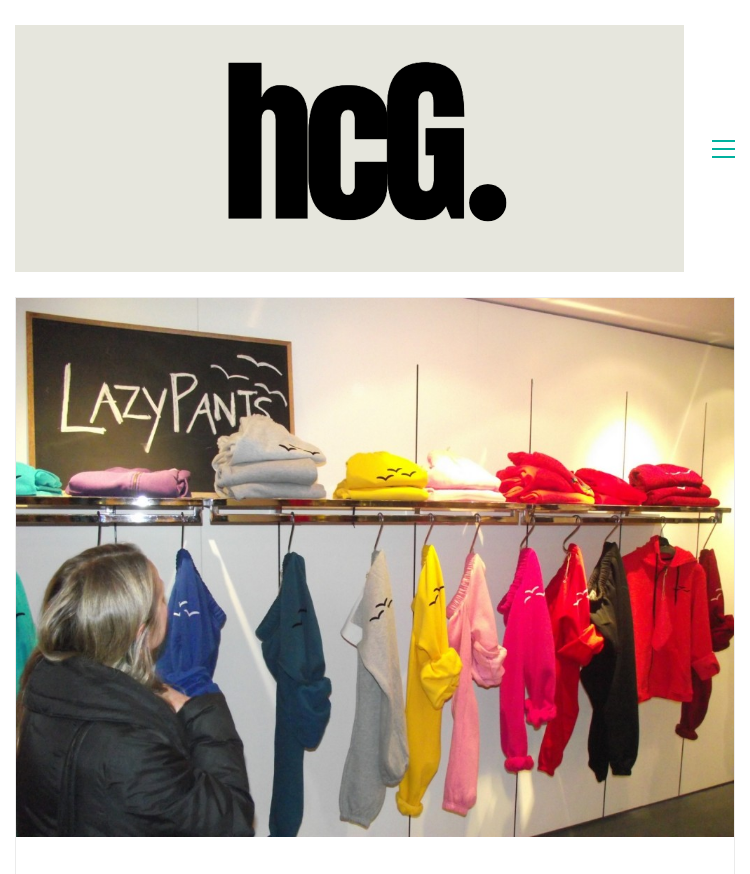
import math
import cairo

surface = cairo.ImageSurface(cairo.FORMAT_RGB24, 750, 874)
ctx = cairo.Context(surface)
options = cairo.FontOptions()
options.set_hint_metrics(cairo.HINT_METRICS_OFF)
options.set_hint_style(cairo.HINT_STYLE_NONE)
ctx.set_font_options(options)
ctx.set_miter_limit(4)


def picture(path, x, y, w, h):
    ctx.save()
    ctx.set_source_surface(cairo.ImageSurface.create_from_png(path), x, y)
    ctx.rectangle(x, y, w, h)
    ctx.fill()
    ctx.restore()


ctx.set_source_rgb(1, 1, 1)
ctx.paint()
picture("img1.png", 15, 25, 669, 247)
ctx.set_source_rgb(0, 0.694, 0.62)
ctx.rectangle(712, 140, 23, 2)
ctx.fill()
ctx.rectangle(712, 148, 23, 2)
ctx.fill()
ctx.rectangle(712, 156, 23, 2)
ctx.fill()
ctx.set_source_rgb(0.918, 0.918, 0.918)
ctx.rectangle(15, 297, 720, 1)
ctx.fill()
ctx.rectangle(734, 297, 1, 540)
ctx.fill()
ctx.rectangle(15, 297, 1, 540)
ctx.fill()
picture("img2.png", 16, 298, 718, 539)
ctx.rectangle(734, 837, 1, 37)
ctx.fill()
ctx.rectangle(15, 837, 1, 37)
ctx.fill()
surface.write_to_png("page.png")
